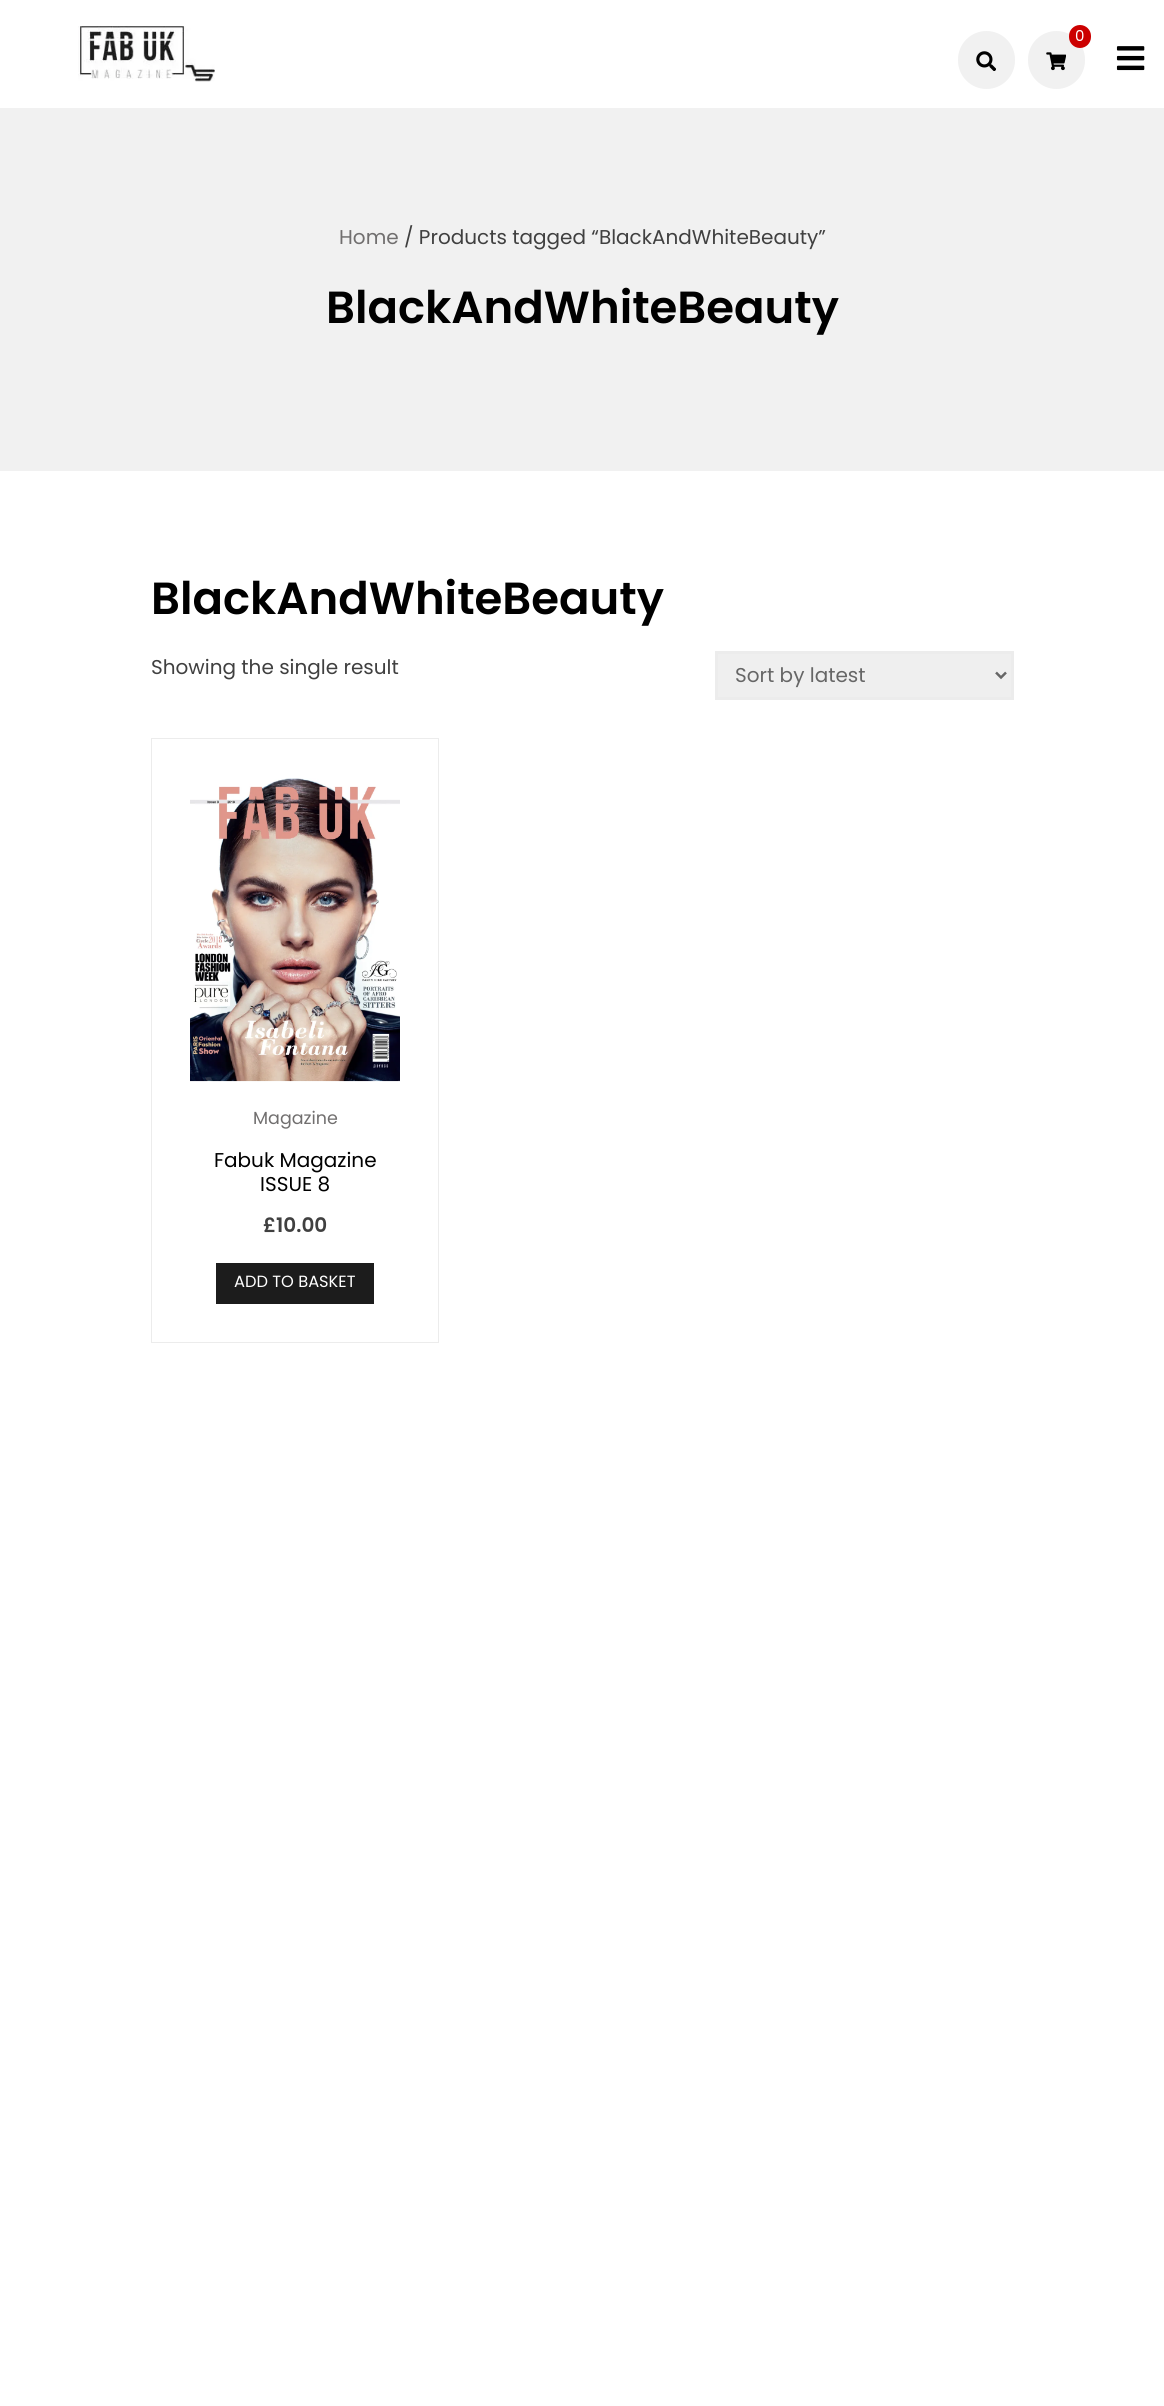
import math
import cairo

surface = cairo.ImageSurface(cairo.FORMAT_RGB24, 1164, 2406)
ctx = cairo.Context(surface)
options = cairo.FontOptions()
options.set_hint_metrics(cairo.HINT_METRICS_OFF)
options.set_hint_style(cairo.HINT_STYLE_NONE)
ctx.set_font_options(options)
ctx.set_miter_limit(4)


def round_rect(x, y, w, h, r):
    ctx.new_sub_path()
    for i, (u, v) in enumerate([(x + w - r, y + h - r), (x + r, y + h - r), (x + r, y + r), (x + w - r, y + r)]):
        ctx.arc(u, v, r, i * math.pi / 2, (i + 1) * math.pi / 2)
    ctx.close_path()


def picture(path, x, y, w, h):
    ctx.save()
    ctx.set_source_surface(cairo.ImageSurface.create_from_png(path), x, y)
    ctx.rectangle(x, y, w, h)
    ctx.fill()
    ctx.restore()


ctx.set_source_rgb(1, 1, 1)
ctx.paint()
picture("img1.png", 78, 26, 137, 56)
ctx.set_source_rgb(0.945, 0.945, 0.945)
round_rect(958, 31, 57, 58, 28.5)
ctx.fill()
picture("img2.png", 976, 51, 20, 20)
round_rect(1028, 31, 57, 58, 28.5)
ctx.fill()
ctx.set_source_rgb(0.8, 0, 0)
round_rect(1069, 25, 22, 23, 11)
ctx.fill()
ctx.select_font_face("Poppins")
ctx.set_font_size(15)
ctx.set_source_rgb(1, 1, 1)
ctx.move_to(1075, 41)
ctx.show_text("0")
picture("img3.png", 1046, 52, 20, 19)
picture("img4.png", 1116, 46, 29, 25)
ctx.set_source_rgb(0.945, 0.945, 0.945)
ctx.rectangle(0, 108, 1164, 363)
ctx.fill()
ctx.set_font_size(20)
ctx.set_source_rgb(0.443, 0.435, 0.435)
ctx.move_to(339, 244)
ctx.show_text("Home")
ctx.set_source_rgb(0.251, 0.251, 0.251)
ctx.move_to(404, 244)
ctx.show_text("/ Products tagged “BlackAndWhiteBeauty”")
ctx.select_font_face("Poppins SemiBold")
ctx.set_font_size(45)
ctx.set_source_rgb(0, 0, 0)
ctx.move_to(326, 323)
ctx.show_text("BlackAndWhiteBeauty")
ctx.move_to(151, 614)
ctx.show_text("BlackAndWhiteBeauty")
ctx.select_font_face("Poppins")
ctx.set_font_size(20)
ctx.set_source_rgb(0.251, 0.251, 0.251)
ctx.move_to(151, 674)
ctx.show_text("Showing the single result")
ctx.set_source_rgb(0.937, 0.937, 0.937)
ctx.rectangle(716.5, 652.5, 296, 46)
ctx.fill_preserve()
ctx.set_source_rgb(0.922, 0.922, 0.922)
ctx.set_line_width(3)
ctx.stroke()
ctx.new_path()
ctx.move_to(996, 672.5)
ctx.line_to(1001, 677.5)
ctx.line_to(1006, 672.5)
ctx.set_source_rgb(0.4, 0.4, 0.4)
ctx.set_line_width(2.5)
ctx.stroke()
ctx.move_to(735, 682)
ctx.show_text("Sort by latest")
ctx.rectangle(151.5, 738.5, 287, 604)
ctx.set_source_rgb(0.922, 0.922, 0.922)
ctx.set_line_width(1)
ctx.stroke()
picture("img5.png", 190, 778, 210, 304)
ctx.set_font_size(17.5)
ctx.set_source_rgb(0.443, 0.435, 0.435)
ctx.move_to(253, 1124)
ctx.show_text("Magazine")
ctx.set_font_size(20)
ctx.set_source_rgb(0, 0, 0)
ctx.move_to(214, 1167)
ctx.show_text("Fabuk Magazine")
ctx.move_to(260, 1191)
ctx.show_text("ISSUE 8")
ctx.select_font_face("Poppins SemiBold")
ctx.set_source_rgb(0.251, 0.251, 0.251)
ctx.move_to(263, 1232)
ctx.show_text("£10.00")
ctx.set_source_rgb(0.11, 0.11, 0.11)
ctx.rectangle(216, 1263, 158, 41)
ctx.fill()
ctx.select_font_face("Poppins")
ctx.set_font_size(16.25)
ctx.set_source_rgb(1, 1, 1)
ctx.move_to(234, 1287)
ctx.show_text("ADD TO BASKET")
surface.write_to_png("page.png")
